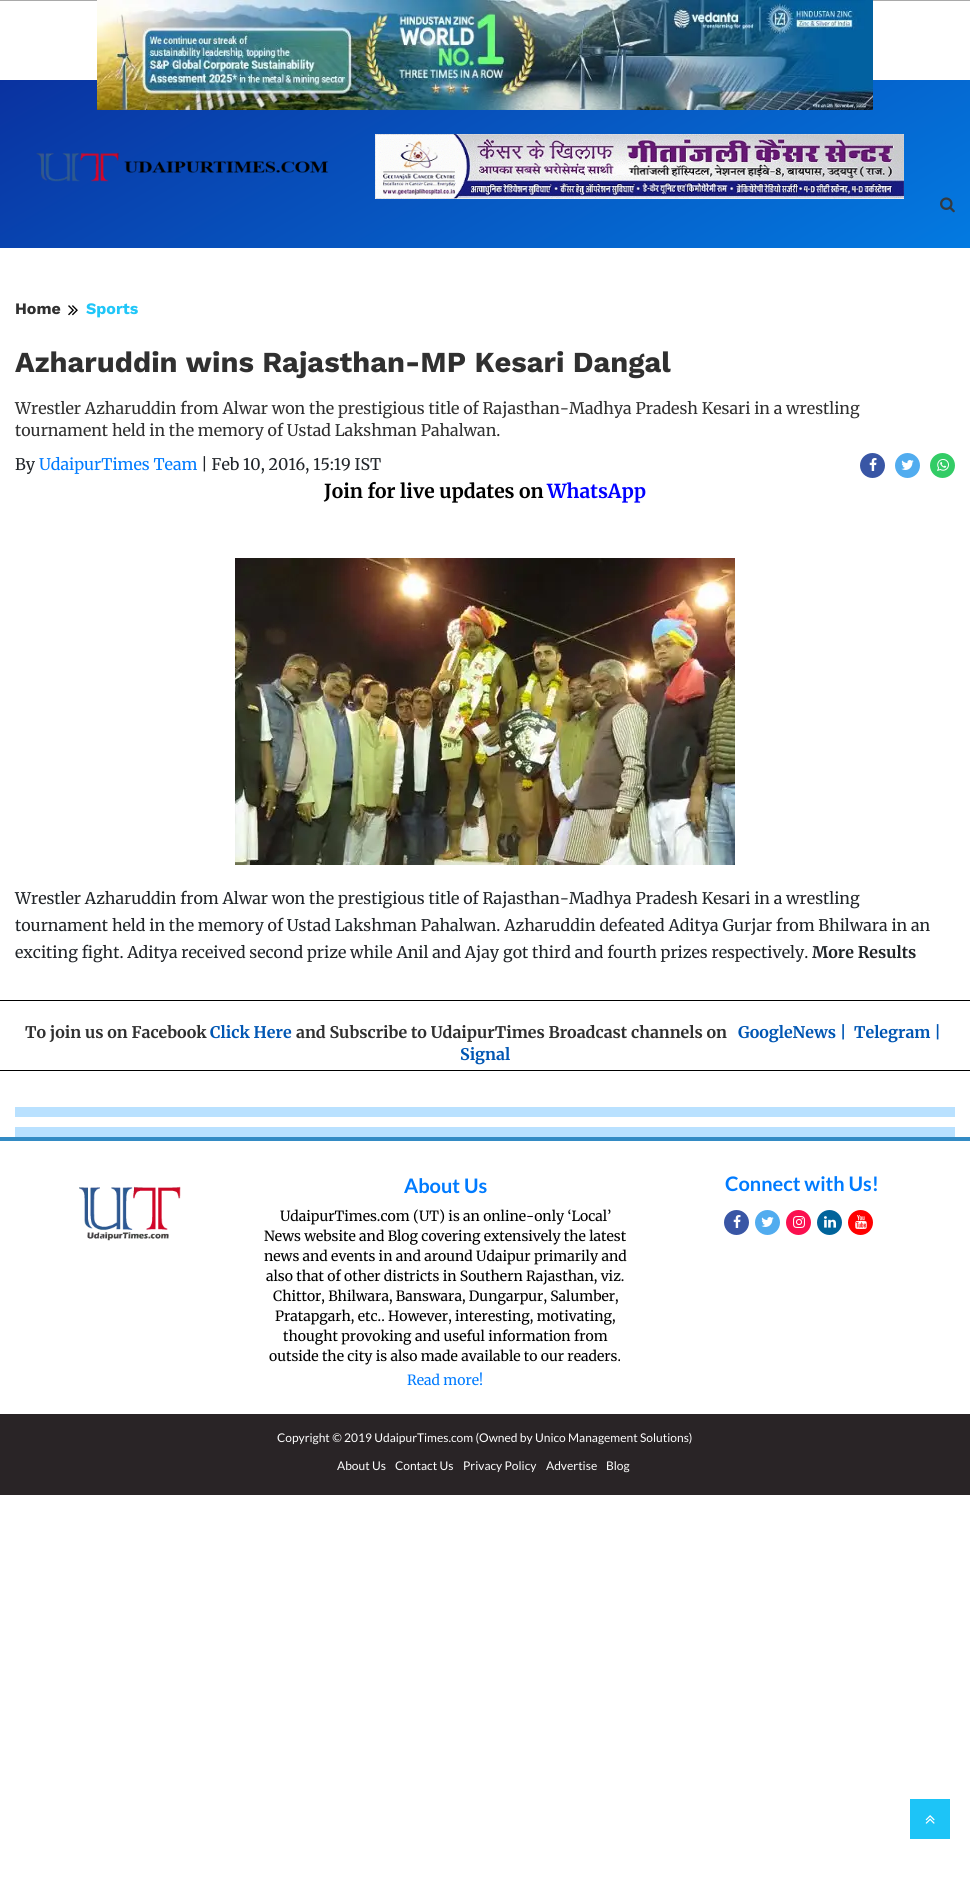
import math
import cairo

surface = cairo.ImageSurface(cairo.FORMAT_RGB24, 970, 1888)
ctx = cairo.Context(surface)
options = cairo.FontOptions()
options.set_hint_metrics(cairo.HINT_METRICS_OFF)
options.set_hint_style(cairo.HINT_STYLE_NONE)
ctx.set_font_options(options)
ctx.set_miter_limit(4)


def picture(path, x, y, w, h):
    ctx.save()
    ctx.set_source_surface(cairo.ImageSurface.create_from_png(path), x, y)
    ctx.rectangle(x, y, w, h)
    ctx.fill()
    ctx.restore()


ctx.set_source_rgb(1, 1, 1)
ctx.paint()
ctx.set_source_rgb(0.663, 0.663, 0.663)
ctx.rectangle(0, 0, 970, 1)
ctx.fill()
gradient = cairo.LinearGradient(255, -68, 715, 728)
gradient.add_color_stop_rgba(0, 0.039, 0.196, 0.627, 1)
gradient.add_color_stop_rgba(1, 0, 0.608, 1, 1)
ctx.set_source(gradient)
ctx.rectangle(0, 80, 970, 168)
ctx.fill()
picture("img1.png", 97, 0, 776, 110)
picture("img2.png", 36, 152, 293, 30)
picture("img3.png", 375, 134, 529, 65)
picture("img4.png", 940, 197, 15, 16)
ctx.select_font_face("Work Sans", cairo.FONT_SLANT_NORMAL, cairo.FONT_WEIGHT_BOLD)
ctx.set_font_size(16)
ctx.set_source_rgb(0.188, 0.188, 0.188)
ctx.move_to(15, 314)
ctx.show_text("Home")
picture("img5.png", 68, 305, 10, 11)
ctx.set_source_rgb(0.125, 0.776, 0.969)
ctx.move_to(86, 314)
ctx.show_text("Sports")
ctx.set_font_size(29)
ctx.set_source_rgb(0.188, 0.188, 0.188)
ctx.move_to(15, 372)
ctx.show_text("Azharuddin wins Rajasthan-MP Kesari Dangal")
ctx.select_font_face("Merriweather")
ctx.set_font_size(16)
ctx.move_to(15, 414)
ctx.show_text("Wrestler Azharuddin from Alwar won the prestigious title of Rajasthan-Madhya Pradesh Kesari in a wrestling")
ctx.move_to(15, 436)
ctx.show_text("tournament held in the memory of Ustad Lakshman Pahalwan.")
ctx.set_source_rgb(0.129, 0.145, 0.161)
ctx.move_to(15, 470)
ctx.show_text("By")
ctx.set_source_rgb(0, 0.482, 1)
ctx.move_to(39, 470)
ctx.show_text("UdaipurTimes Team")
ctx.set_source_rgb(0.129, 0.145, 0.161)
ctx.move_to(201, 470)
ctx.show_text("| Feb 10, 2016, 15:19 IST")
ctx.set_source_rgb(0.224, 0.337, 0.647)
ctx.new_path()
ctx.arc(872.5, 465.5, 12.5, 0, 2 * math.pi)
ctx.fill()
picture("img6.png", 869, 458, 8, 13)
ctx.set_source_rgb(0.318, 0.675, 0.937)
ctx.arc(907.5, 465.5, 12.5, 0, 2 * math.pi)
ctx.fill()
picture("img7.png", 901, 460, 13, 10)
ctx.set_source_rgb(0.2, 0.8, 0.4)
ctx.arc(942.5, 465.5, 12.5, 0, 2 * math.pi)
ctx.fill()
picture("img8.png", 937, 459, 12, 12)
ctx.select_font_face("Merriweather", cairo.FONT_SLANT_NORMAL, cairo.FONT_WEIGHT_BOLD)
ctx.set_font_size(19.25)
ctx.set_source_rgb(0, 0, 0)
ctx.move_to(324, 498)
ctx.show_text("Join for live updates on")
ctx.set_source_rgb(0, 0, 1)
ctx.move_to(547, 498)
ctx.show_text("WhatsApp")
picture("img9.png", 235, 558, 500, 307)
ctx.select_font_face("Merriweather")
ctx.set_font_size(16)
ctx.set_source_rgb(0.129, 0.145, 0.161)
ctx.move_to(15, 904)
ctx.show_text("Wrestler Azharuddin from Alwar won the prestigious title of Rajasthan-Madhya Pradesh Kesari in a wrestling")
ctx.move_to(15, 931)
ctx.show_text("tournament held in the memory of Ustad Lakshman Pahalwan. Azharuddin defeated Aditya Gurjar from Bhilwara in an")
ctx.move_to(15, 958)
ctx.show_text("exciting fight. Aditya received second prize while Anil and Ajay got third and fourth prizes respectively.")
ctx.select_font_face("Merriweather", cairo.FONT_SLANT_NORMAL, cairo.FONT_WEIGHT_BOLD)
ctx.move_to(812, 958)
ctx.show_text("More Results")
ctx.set_source_rgb(0, 0, 0)
ctx.rectangle(0, 1000, 970, 1)
ctx.fill()
ctx.rectangle(0, 1070, 970, 1)
ctx.fill()
ctx.set_source_rgb(0.188, 0.188, 0.188)
ctx.move_to(25, 1038)
ctx.show_text("To join us on Facebook")
ctx.set_source_rgb(0, 0.337, 0.702)
ctx.move_to(210, 1038)
ctx.show_text("Click Here")
ctx.set_source_rgb(0.188, 0.188, 0.188)
ctx.move_to(296, 1038)
ctx.show_text("and Subscribe to UdaipurTimes Broadcast channels on")
ctx.set_source_rgb(0, 0.337, 0.702)
ctx.move_to(738, 1038)
ctx.show_text("GoogleNews |")
ctx.move_to(854, 1038)
ctx.show_text("Telegram |")
ctx.move_to(460, 1060)
ctx.show_text("Signal")
ctx.set_source_rgb(0.725, 0.882, 1)
ctx.rectangle(15, 1107, 940, 10)
ctx.fill()
ctx.rectangle(15, 1127, 940, 10)
ctx.fill()
ctx.set_source_rgb(0.2, 0.545, 0.769)
ctx.rectangle(0, 1137, 970, 4)
ctx.fill()
picture("img10.png", 79, 1186, 102, 55)
ctx.select_font_face("Lato", cairo.FONT_SLANT_NORMAL, cairo.FONT_WEIGHT_BOLD)
ctx.set_font_size(20)
ctx.set_source_rgb(0, 0.482, 1)
ctx.move_to(404, 1193)
ctx.show_text("About Us")
ctx.select_font_face("Merriweather")
ctx.set_font_size(14)
ctx.set_source_rgb(0, 0, 0)
ctx.move_to(280, 1221)
ctx.show_text("UdaipurTimes.com (UT) is an online-only ‘Local’")
ctx.move_to(264, 1241)
ctx.show_text("News website and Blog covering extensively the latest")
ctx.move_to(264, 1261)
ctx.show_text("news and events in and around Udaipur primarily and")
ctx.move_to(266, 1281)
ctx.show_text("also that of other districts in Southern Rajasthan, viz.")
ctx.move_to(273, 1301)
ctx.show_text("Chittor, Bhilwara, Banswara, Dungarpur, Salumber,")
ctx.move_to(275, 1321)
ctx.show_text("Pratapgarh, etc.. However, interesting, motivating,")
ctx.move_to(283, 1341)
ctx.show_text("thought provoking and useful information from")
ctx.move_to(269, 1361)
ctx.show_text("outside the city is also made available to our readers.")
ctx.set_source_rgb(0, 0.482, 1)
ctx.move_to(407, 1385)
ctx.show_text("Read more!")
ctx.select_font_face("Lato", cairo.FONT_SLANT_NORMAL, cairo.FONT_WEIGHT_BOLD)
ctx.set_font_size(20)
ctx.move_to(725, 1191)
ctx.show_text("Connect with Us!")
ctx.set_source_rgb(0.224, 0.337, 0.647)
ctx.new_path()
ctx.arc(736.5, 1222.5, 12.5, 0, 2 * math.pi)
ctx.fill()
picture("img6.png", 733, 1215, 8, 13)
ctx.set_source_rgb(0.318, 0.675, 0.937)
ctx.arc(767.5, 1222.5, 12.5, 0, 2 * math.pi)
ctx.fill()
picture("img7.png", 761, 1217, 13, 10)
ctx.set_source_rgb(0.984, 0.063, 0.31)
ctx.arc(798.5, 1222.5, 12.5, 0, 2 * math.pi)
ctx.fill()
picture("img11.png", 793, 1216, 12, 12)
ctx.set_source_rgb(0.004, 0.392, 0.608)
ctx.arc(829.5, 1222.5, 12.5, 0, 2 * math.pi)
ctx.fill()
picture("img12.png", 824, 1216, 12, 12)
ctx.set_source_rgb(1, 0, 0)
ctx.arc(860.5, 1222.5, 12.5, 0, 2 * math.pi)
ctx.fill()
picture("img13.png", 855, 1215, 12, 14)
ctx.set_source_rgb(0.161, 0.141, 0.149)
ctx.rectangle(0, 1414, 970, 81)
ctx.fill()
ctx.select_font_face("Lato")
ctx.set_font_size(12)
ctx.set_source_rgb(1, 1, 1)
ctx.move_to(277, 1442)
ctx.show_text("Copyright © 2019 UdaipurTimes.com (Owned by Unico Management Solutions)")
ctx.move_to(337, 1470)
ctx.show_text("About Us")
ctx.move_to(395, 1470)
ctx.show_text("Contact Us")
ctx.move_to(463, 1470)
ctx.show_text("Privacy Policy")
ctx.move_to(546, 1470)
ctx.show_text("Advertise")
ctx.move_to(606, 1470)
ctx.show_text("Blog")
ctx.set_source_rgb(0.114, 0.769, 0.965)
ctx.rectangle(910, 1799, 40, 40)
ctx.fill()
picture("img14.png", 925, 1815, 10, 9)
surface.write_to_png("page.png")
